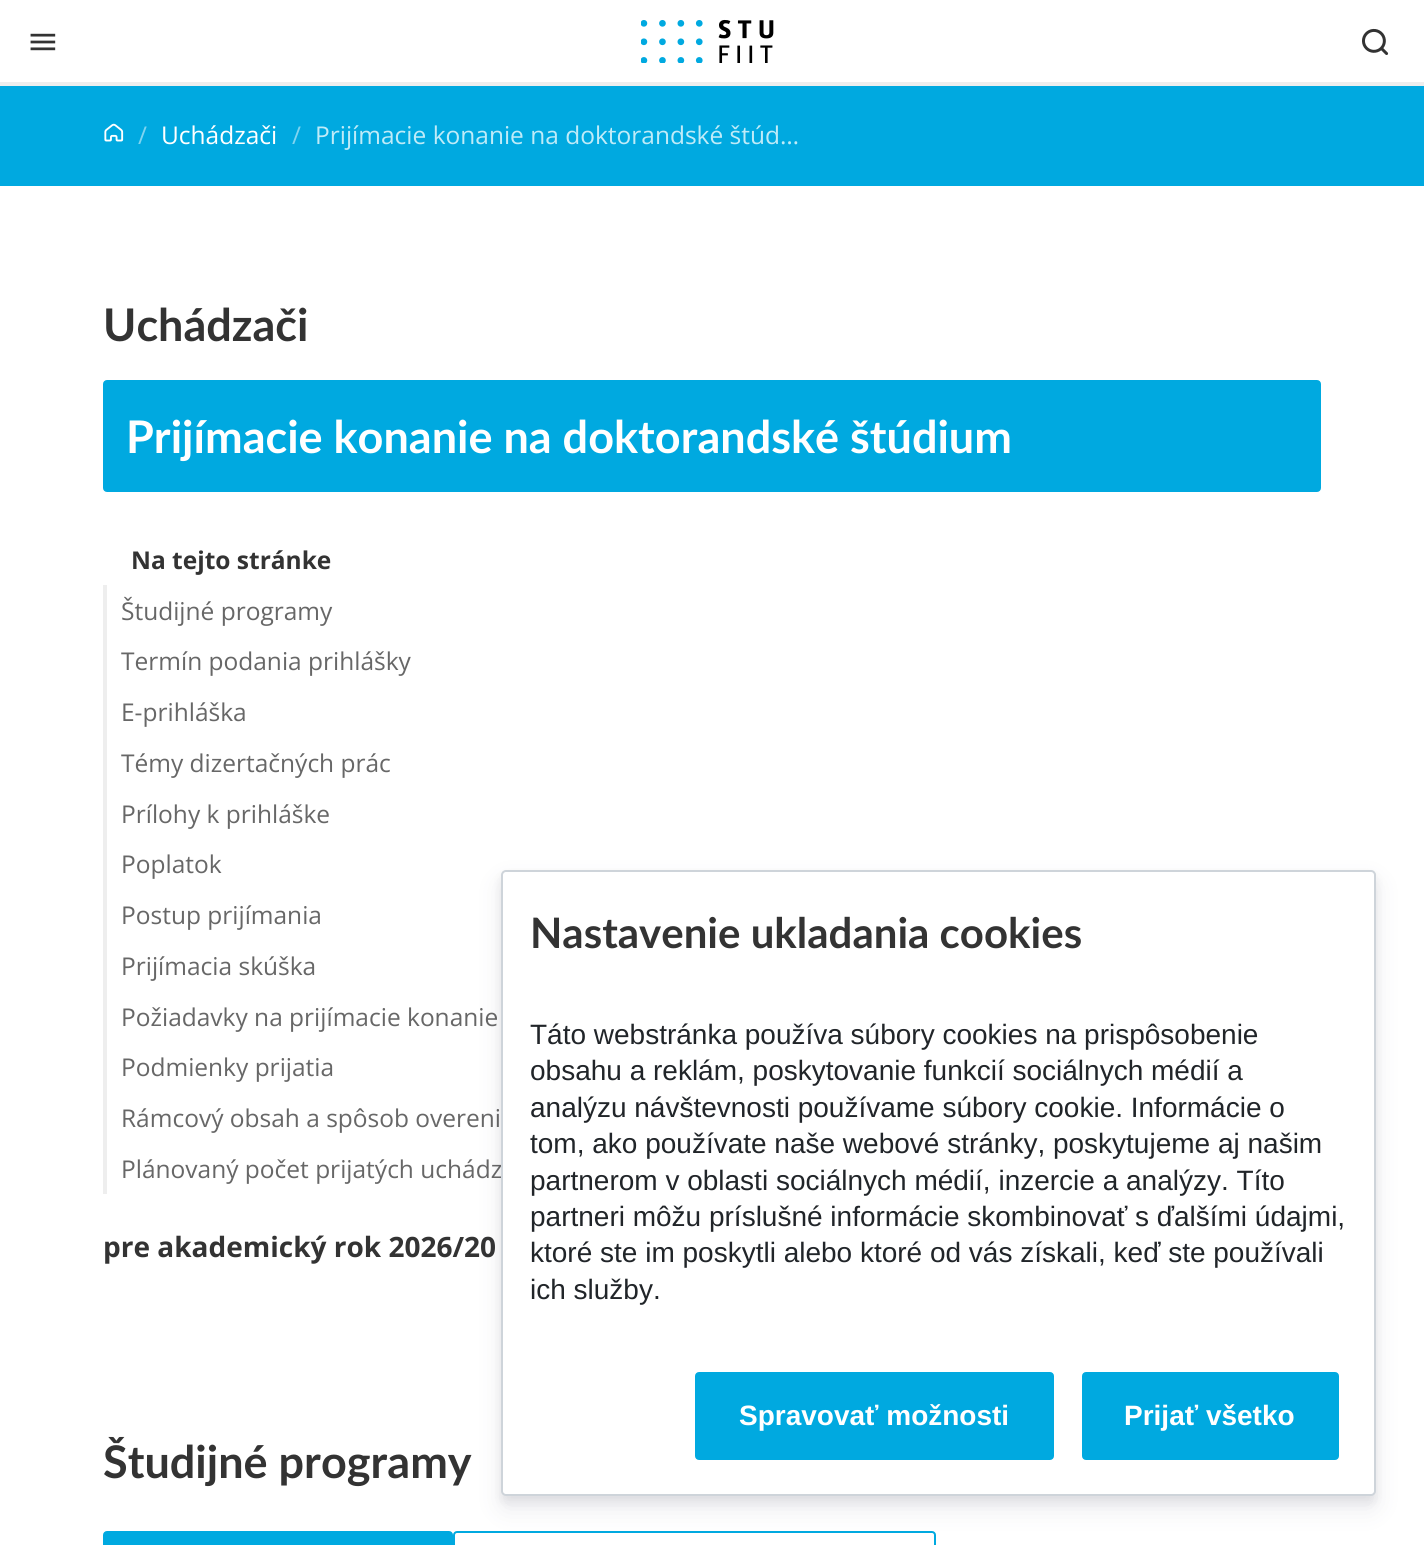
import math
import cairo

surface = cairo.ImageSurface(cairo.FORMAT_RGB24, 1424, 1545)
ctx = cairo.Context(surface)
options = cairo.FontOptions()
options.set_hint_metrics(cairo.HINT_METRICS_OFF)
options.set_hint_style(cairo.HINT_STYLE_NONE)
ctx.set_font_options(options)
ctx.set_miter_limit(4)


def round_rect(x, y, w, h, r):
    ctx.new_sub_path()
    for i, (u, v) in enumerate([(x + w - r, y + h - r), (x + r, y + h - r), (x + r, y + r), (x + w - r, y + r)]):
        ctx.arc(u, v, r, i * math.pi / 2, (i + 1) * math.pi / 2)
    ctx.close_path()


def shadow(x, y, w, h, r, blur, alpha):
    ctx.push_group_with_content(cairo.CONTENT_ALPHA)
    ctx.set_operator(cairo.OPERATOR_SOURCE)
    for i in range(15, -16, -2):
        e = blur * i / 6
        if min(w, h) + 2 * e > 0:
            ctx.set_source_rgba(0, 0, 0, alpha * math.erfc((i - 1) / 8.5) / 2)
            round_rect(x - e, y - e, w + 2 * e, h + 2 * e, max(0, min(r + e + blur * .6, min(w, h) / 2 + e)))
            ctx.fill()
    ctx.mask(ctx.pop_group())


def picture(path, x, y, w, h):
    ctx.save()
    ctx.set_source_surface(cairo.ImageSurface.create_from_png(path), x, y)
    ctx.rectangle(x, y, w, h)
    ctx.fill()
    ctx.restore()


ctx.set_source_rgb(0.933, 0.933, 0.933)
ctx.paint()
ctx.set_source_rgb(1, 1, 1)
ctx.rectangle(0, 0, 1424, 82)
ctx.fill()
picture("img1.png", 30, 33, 26, 18)
picture("img2.png", 641, 19, 133, 44)
picture("img3.png", 1362, 28, 27, 27)
ctx.set_source_rgb(0, 0.663, 0.878)
ctx.rectangle(0, 86, 1424, 100)
ctx.fill()
picture("img4.png", 104, 123, 20, 19)
ctx.select_font_face("Open Sans")
ctx.set_font_size(24.5)
ctx.set_source_rgb(0.502, 0.831, 0.941)
ctx.move_to(138, 144)
ctx.show_text("/")
ctx.set_source_rgb(1, 1, 1)
ctx.move_to(161, 144)
ctx.show_text("Uchádzači")
ctx.set_source_rgb(0.502, 0.831, 0.941)
ctx.move_to(292, 144)
ctx.show_text("/")
ctx.set_source_rgb(0.749, 0.918, 0.969)
ctx.move_to(315, 144)
ctx.show_text("Prijímacie konanie na doktorandské štúd…")
ctx.set_source_rgb(1, 1, 1)
ctx.rectangle(0, 186, 1424, 1359)
ctx.fill()
ctx.select_font_face("Lato", cairo.FONT_SLANT_NORMAL, cairo.FONT_WEIGHT_BOLD)
ctx.set_font_size(45)
ctx.set_source_rgb(0.2, 0.2, 0.2)
ctx.move_to(103, 341)
ctx.show_text("Uchádzači")
ctx.set_source_rgb(0, 0.663, 0.878)
round_rect(104, 381, 1216, 110, 3)
ctx.fill_preserve()
ctx.stroke()
ctx.set_source_rgb(1, 1, 1)
ctx.move_to(126, 453)
ctx.show_text("Prijímacie konanie na doktorandské štúdium")
ctx.select_font_face("Open Sans", cairo.FONT_SLANT_NORMAL, cairo.FONT_WEIGHT_BOLD)
ctx.set_font_size(24.5)
ctx.set_source_rgb(0.2, 0.2, 0.2)
ctx.move_to(131, 569)
ctx.show_text("Na tejto stránke")
ctx.set_source_rgb(0.933, 0.933, 0.933)
ctx.rectangle(103, 585, 4, 609)
ctx.fill()
ctx.select_font_face("Open Sans")
ctx.set_source_rgb(0.404, 0.404, 0.404)
ctx.move_to(121, 620)
ctx.show_text("Študijné programy")
ctx.move_to(121, 670)
ctx.show_text("Termín podania prihlášky")
ctx.move_to(121, 721)
ctx.show_text("E-prihláška")
ctx.move_to(121, 772)
ctx.show_text("Témy dizertačných prác")
ctx.move_to(121, 823)
ctx.show_text("Prílohy k prihláške")
ctx.move_to(121, 873)
ctx.show_text("Poplatok")
ctx.move_to(121, 924)
ctx.show_text("Postup prijímania")
ctx.move_to(121, 975)
ctx.show_text("Prijímacia skúška")
ctx.move_to(121, 1026)
ctx.show_text("Požiadavky na prijímacie konanie")
ctx.move_to(121, 1076)
ctx.show_text("Podmienky prijatia")
ctx.move_to(121, 1127)
ctx.show_text("Rámcový obsah a spôsob overeni")
ctx.move_to(121, 1178)
ctx.show_text("Plánovaný počet prijatých uchádz")
ctx.select_font_face("Open Sans", cairo.FONT_SLANT_NORMAL, cairo.FONT_WEIGHT_BOLD)
ctx.set_font_size(28)
ctx.set_source_rgb(0.2, 0.2, 0.2)
ctx.move_to(103, 1257)
ctx.show_text("pre akademický rok 2026/20")
ctx.select_font_face("Lato", cairo.FONT_SLANT_NORMAL, cairo.FONT_WEIGHT_BOLD)
ctx.set_font_size(45)
ctx.move_to(103, 1478)
ctx.show_text("Študijné programy")
ctx.set_source_rgb(0, 0.663, 0.878)
round_rect(104, 1532, 348, 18, 3)
ctx.fill_preserve()
ctx.stroke()
round_rect(454, 1532, 481, 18, 3)
ctx.stroke()
ctx.set_source_rgb(0, 0, 0)
shadow(501, 875, 875, 627, 5, 5, 0.07)
ctx.set_source_rgb(0.196, 0.196, 0.365)
shadow(501, 882, 875, 627, 5, 12, 0.1)
ctx.set_source_rgb(1, 1, 1)
round_rect(502, 871, 873, 624, 4)
ctx.fill_preserve()
ctx.set_source_rgb(0.808, 0.831, 0.855)
ctx.stroke()
ctx.set_font_size(42)
ctx.set_source_rgb(0.2, 0.2, 0.2)
ctx.move_to(530, 948)
ctx.show_text("Nastavenie ukladania cookies")
ctx.select_font_face("Liberation Sans")
ctx.set_font_size(28)
ctx.set_source_rgb(0.129, 0.145, 0.161)
ctx.move_to(530, 1044)
ctx.show_text("Táto webstránka používa súbory cookies na prispôsobenie")
ctx.move_to(530, 1080)
ctx.show_text("obsahu a reklám, poskytovanie funkcií sociálnych médií a")
ctx.move_to(530, 1117)
ctx.show_text("analýzu návštevnosti používame súbory cookie. Informácie o")
ctx.move_to(530, 1153)
ctx.show_text("tom, ako používate naše webové stránky, poskytujeme aj našim")
ctx.move_to(530, 1190)
ctx.show_text("partnerom v oblasti sociálnych médií, inzercie a analýzy. Títo")
ctx.move_to(530, 1226)
ctx.show_text("partneri môžu príslušné informácie skombinovať s ďalšími údajmi,")
ctx.move_to(530, 1262)
ctx.show_text("ktoré ste im poskytli alebo ktoré od vás získali, keď ste používali")
ctx.move_to(530, 1299)
ctx.show_text("ich služby.")
ctx.set_source_rgb(0, 0.663, 0.878)
round_rect(696, 1373, 357, 86, 3)
ctx.fill_preserve()
ctx.stroke()
ctx.select_font_face("Liberation Sans", cairo.FONT_SLANT_NORMAL, cairo.FONT_WEIGHT_BOLD)
ctx.set_source_rgb(1, 1, 1)
ctx.move_to(739, 1425)
ctx.show_text("Spravovať možnosti")
ctx.set_source_rgb(0, 0.663, 0.878)
round_rect(1083, 1373, 255, 86, 3)
ctx.fill_preserve()
ctx.stroke()
ctx.set_source_rgb(1, 1, 1)
ctx.move_to(1124, 1425)
ctx.show_text("Prijať všetko")
surface.write_to_png("page.png")
